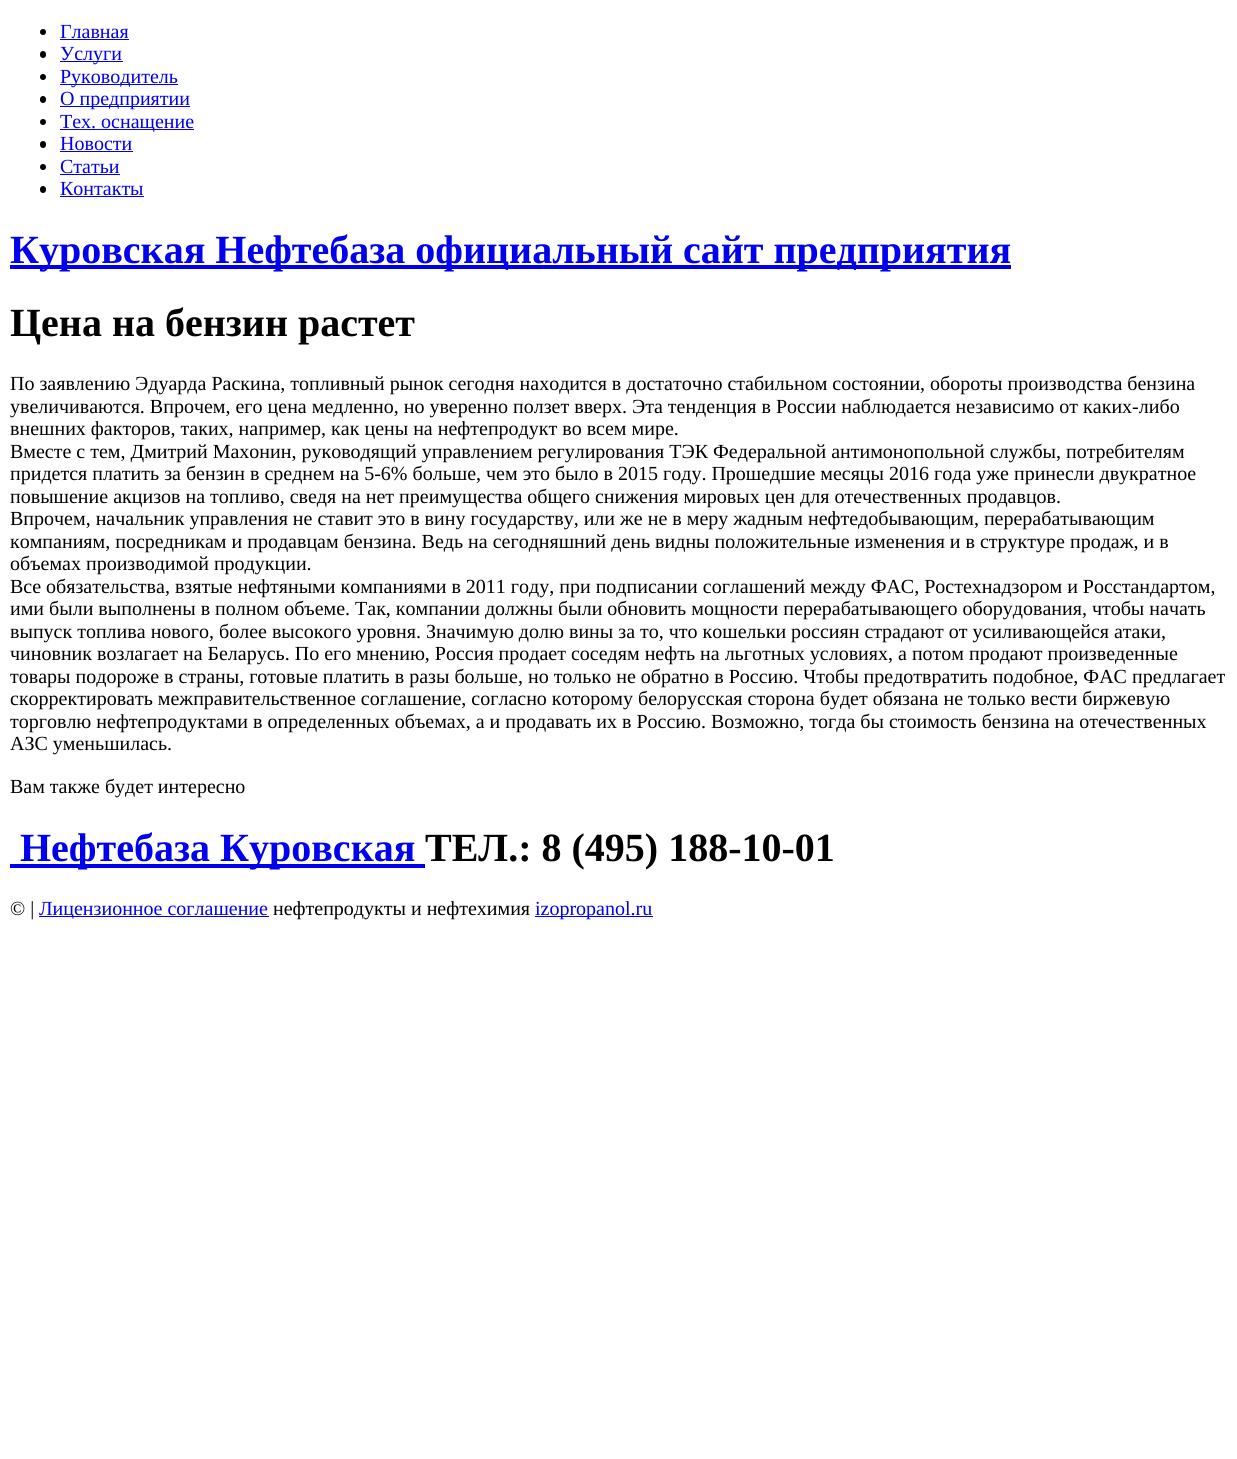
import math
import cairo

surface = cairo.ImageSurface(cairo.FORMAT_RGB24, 1237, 1459)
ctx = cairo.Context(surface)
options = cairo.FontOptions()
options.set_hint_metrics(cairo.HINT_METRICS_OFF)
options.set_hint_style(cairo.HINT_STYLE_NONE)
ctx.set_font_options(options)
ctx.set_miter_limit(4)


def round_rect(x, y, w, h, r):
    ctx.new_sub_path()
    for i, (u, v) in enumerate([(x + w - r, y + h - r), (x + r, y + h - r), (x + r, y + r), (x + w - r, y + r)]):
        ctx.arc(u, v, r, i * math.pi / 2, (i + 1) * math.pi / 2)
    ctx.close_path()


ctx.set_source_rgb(1, 1, 1)
ctx.paint()
ctx.set_source_rgb(0, 0, 0)
ctx.arc(43, 32, 3, 0, 2 * math.pi)
ctx.fill()
ctx.select_font_face("Liberation Serif")
ctx.set_font_size(20)
ctx.set_source_rgb(0, 0, 0.933)
ctx.move_to(60, 38)
ctx.show_text("Главная")
ctx.rectangle(60, 39, 69, 1)
ctx.fill()
ctx.set_source_rgb(0, 0, 0)
round_rect(40, 51, 6, 7, 3)
ctx.fill()
ctx.set_source_rgb(0, 0, 0.933)
ctx.rectangle(60, 61, 63, 1)
ctx.fill()
ctx.move_to(60, 60)
ctx.show_text("Услуги")
ctx.set_source_rgb(0, 0, 0)
ctx.new_path()
ctx.arc(43, 77, 3, 0, 2 * math.pi)
ctx.fill()
ctx.set_source_rgb(0, 0, 0.933)
ctx.rectangle(60, 84, 118, 1)
ctx.fill()
ctx.move_to(60, 83)
ctx.show_text("Руководитель")
ctx.set_source_rgb(0, 0, 0)
round_rect(40, 96, 6, 7, 3)
ctx.fill()
ctx.set_source_rgb(0, 0, 0.933)
ctx.rectangle(60, 106, 130, 1)
ctx.fill()
ctx.move_to(60, 105)
ctx.show_text("O предприятии")
ctx.set_source_rgb(0, 0, 0)
ctx.new_path()
ctx.arc(43, 122, 3, 0, 2 * math.pi)
ctx.fill()
ctx.set_source_rgb(0, 0, 0.933)
ctx.rectangle(60, 129, 134, 1)
ctx.fill()
ctx.move_to(60, 128)
ctx.show_text("Тех. оснащение")
ctx.set_source_rgb(0, 0, 0)
round_rect(40, 141, 6, 7, 3)
ctx.fill()
ctx.set_source_rgb(0, 0, 0.933)
ctx.move_to(60, 150)
ctx.show_text("Новости")
ctx.rectangle(60, 151, 73, 1)
ctx.fill()
ctx.set_source_rgb(0, 0, 0)
ctx.arc(43, 167, 3, 0, 2 * math.pi)
ctx.fill()
ctx.set_source_rgb(0, 0, 0.933)
ctx.move_to(60, 173)
ctx.show_text("Статьи")
ctx.rectangle(60, 174, 60, 1)
ctx.fill()
ctx.set_source_rgb(0, 0, 0)
round_rect(40, 186, 6, 7, 3)
ctx.fill()
ctx.set_source_rgb(0, 0, 0.933)
ctx.move_to(60, 195)
ctx.show_text("Контакты")
ctx.rectangle(60, 196, 84, 1)
ctx.fill()
ctx.rectangle(10, 265, 1001, 4)
ctx.fill()
ctx.select_font_face("Liberation Serif", cairo.FONT_SLANT_NORMAL, cairo.FONT_WEIGHT_BOLD)
ctx.set_font_size(40)
ctx.move_to(10, 263)
ctx.show_text("Куровская Нефтебаза официальный сайт предприятия")
ctx.set_source_rgb(0, 0, 0)
ctx.move_to(10, 336)
ctx.show_text("Цена на бензин растет")
ctx.select_font_face("Liberation Serif")
ctx.set_font_size(20)
ctx.move_to(10, 390)
ctx.show_text("По заявлению Эдуарда Раскина, топливный рынок сегодня находится в достаточно стабильном состоянии, обороты производства бензина")
ctx.move_to(10, 413)
ctx.show_text("увеличиваются. Впрочем, его цена медленно, но уверенно ползет вверх. Эта тенденция в России наблюдается независимо от каких-либо")
ctx.move_to(10, 435)
ctx.show_text("внешних факторов, таких, например, как цены на нефтепродукт во всем мире.")
ctx.move_to(10, 458)
ctx.show_text("Вместе с тем, Дмитрий Махонин, руководящий управлением регулирования ТЭК Федеральной антимонопольной службы, потребителям")
ctx.move_to(10, 480)
ctx.show_text("придется платить за бензин в среднем на 5-6% больше, чем это было в 2015 году. Прошедшие месяцы 2016 года уже принесли двукратное")
ctx.move_to(10, 503)
ctx.show_text("повышение акцизов на топливо, сведя на нет преимущества общего снижения мировых цен для отечественных продавцов.")
ctx.move_to(10, 525)
ctx.show_text("Впрочем, начальник управления не ставит это в вину государству, или же не в меру жадным нефтедобывающим, перерабатывающим")
ctx.move_to(10, 548)
ctx.show_text("компаниям, посредникам и продавцам бензина. Ведь на сегодняшний день видны положительные изменения и в структуре продаж, и в")
ctx.move_to(10, 570)
ctx.show_text("объемах производимой продукции.")
ctx.move_to(10, 593)
ctx.show_text("Все обязательства, взятые нефтяными компаниями в 2011 году, при подписании соглашений между ФАС, Ростехнадзором и Росстандартом,")
ctx.move_to(10, 615)
ctx.show_text("ими были выполнены в полном объеме. Так, компании должны были обновить мощности перерабатывающего оборудования, чтобы начать")
ctx.move_to(10, 638)
ctx.show_text("выпуск топлива нового, более высокого уровня. Значимую долю вины за то, что кошельки россиян страдают от усиливающейся атаки,")
ctx.move_to(10, 660)
ctx.show_text("чиновник возлагает на Беларусь. По его мнению, Россия продает соседям нефть на льготных условиях, а потом продают произведенные")
ctx.move_to(10, 683)
ctx.show_text("товары подороже в страны, готовые платить в разы больше, но только не обратно в Россию. Чтобы предотвратить подобное, ФАС предлагает")
ctx.move_to(10, 705)
ctx.show_text("скорректировать межправительственное соглашение, согласно которому белорусская сторона будет обязана не только вести биржевую")
ctx.move_to(10, 728)
ctx.show_text("торговлю нефтепродуктами в определенных объемах, а и продавать их в Россию. Возможно, тогда бы стоимость бензина на отечественных")
ctx.move_to(10, 750)
ctx.show_text("АЗС уменьшилась.")
ctx.move_to(10, 793)
ctx.show_text("Вам также будет интересно")
ctx.set_source_rgb(0, 0, 0.933)
ctx.rectangle(10, 864, 415, 4)
ctx.fill()
ctx.select_font_face("Liberation Serif", cairo.FONT_SLANT_NORMAL, cairo.FONT_WEIGHT_BOLD)
ctx.set_font_size(40)
ctx.move_to(20, 861)
ctx.show_text("Нефтебаза Куровская")
ctx.set_source_rgb(0, 0, 0)
ctx.move_to(425, 861)
ctx.show_text("ТЕЛ.: 8 (495) 188-10-01")
ctx.select_font_face("Liberation Serif")
ctx.set_font_size(20)
ctx.move_to(10, 915)
ctx.show_text("© |")
ctx.set_source_rgb(0, 0, 0.933)
ctx.rectangle(39, 916, 230, 1)
ctx.fill()
ctx.move_to(39, 915)
ctx.show_text("Лицензионное соглашение")
ctx.set_source_rgb(0, 0, 0)
ctx.move_to(273, 915)
ctx.show_text("нефтепродукты и нефтехимия")
ctx.set_source_rgb(0, 0, 0.933)
ctx.rectangle(535, 916, 118, 1)
ctx.fill()
ctx.move_to(535, 915)
ctx.show_text("izopropanol.ru")
surface.write_to_png("page.png")
